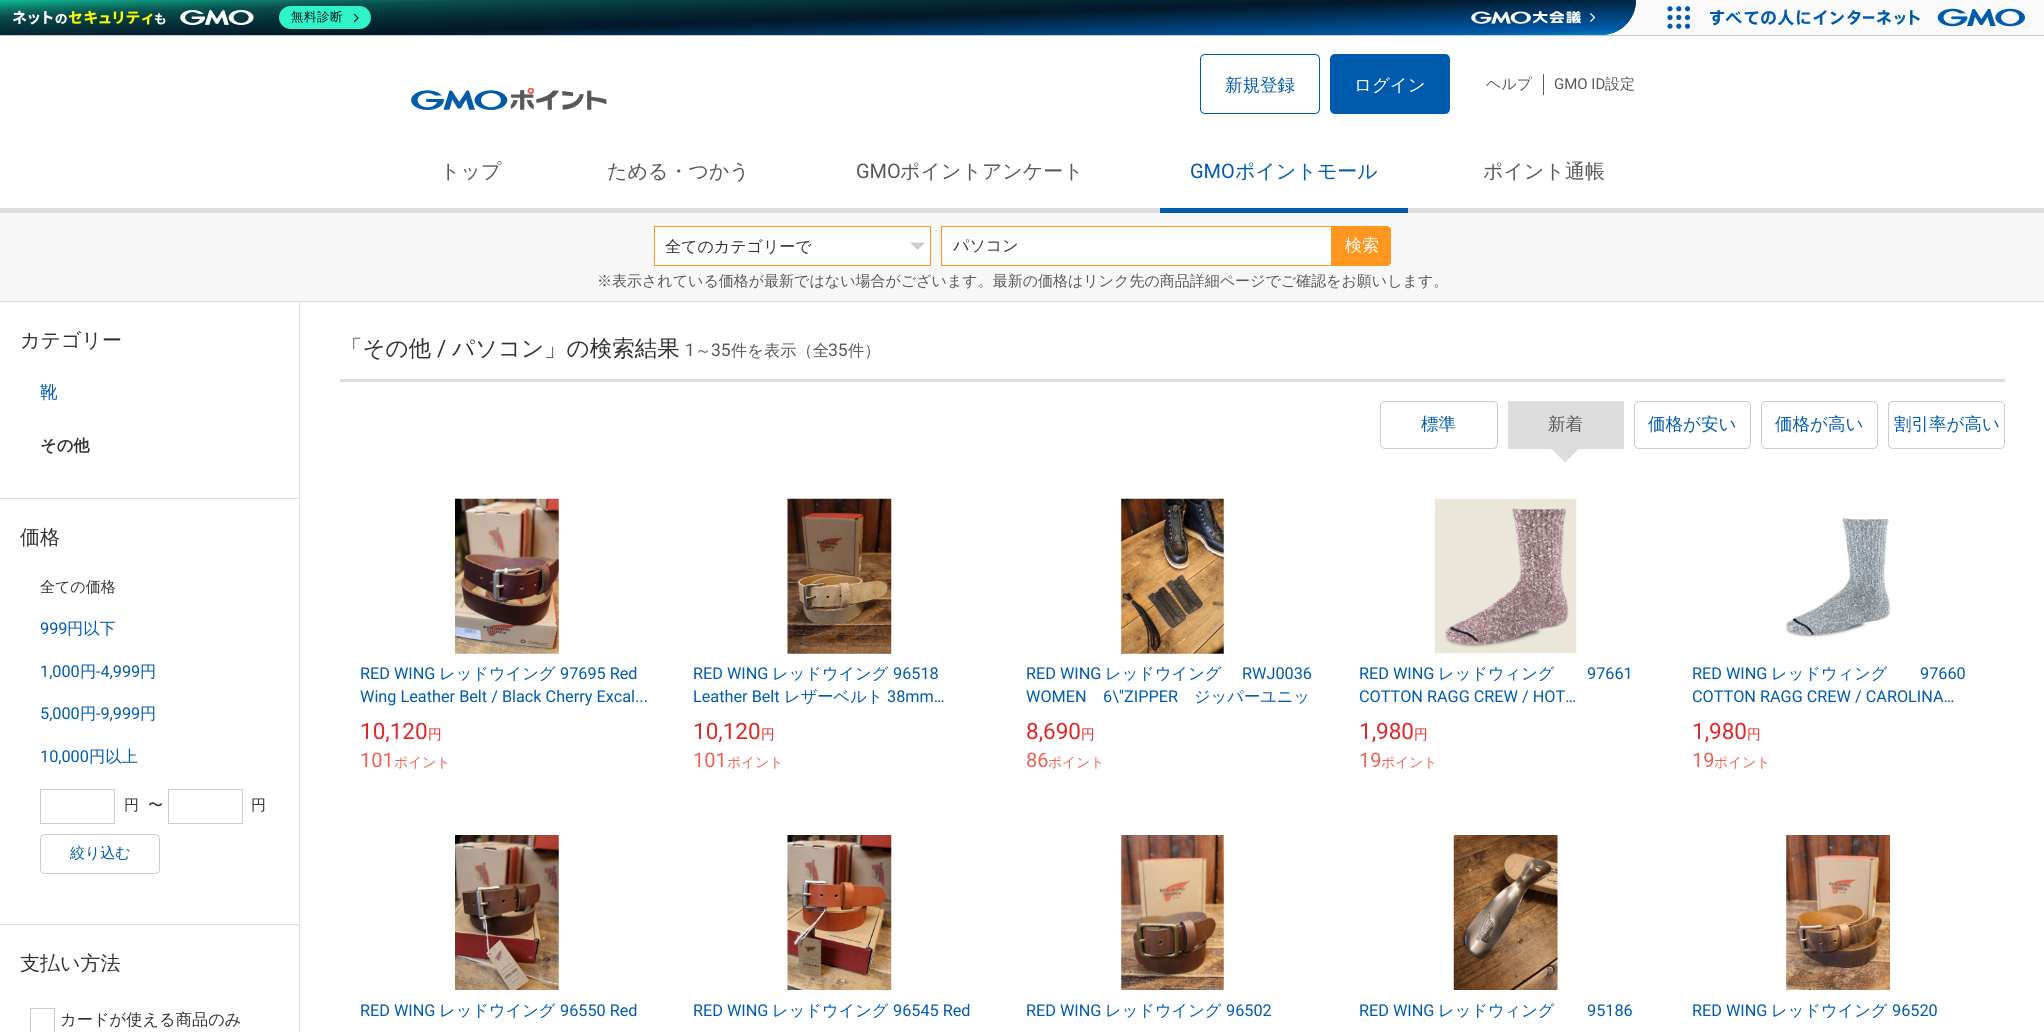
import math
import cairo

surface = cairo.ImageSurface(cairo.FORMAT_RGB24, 2044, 1032)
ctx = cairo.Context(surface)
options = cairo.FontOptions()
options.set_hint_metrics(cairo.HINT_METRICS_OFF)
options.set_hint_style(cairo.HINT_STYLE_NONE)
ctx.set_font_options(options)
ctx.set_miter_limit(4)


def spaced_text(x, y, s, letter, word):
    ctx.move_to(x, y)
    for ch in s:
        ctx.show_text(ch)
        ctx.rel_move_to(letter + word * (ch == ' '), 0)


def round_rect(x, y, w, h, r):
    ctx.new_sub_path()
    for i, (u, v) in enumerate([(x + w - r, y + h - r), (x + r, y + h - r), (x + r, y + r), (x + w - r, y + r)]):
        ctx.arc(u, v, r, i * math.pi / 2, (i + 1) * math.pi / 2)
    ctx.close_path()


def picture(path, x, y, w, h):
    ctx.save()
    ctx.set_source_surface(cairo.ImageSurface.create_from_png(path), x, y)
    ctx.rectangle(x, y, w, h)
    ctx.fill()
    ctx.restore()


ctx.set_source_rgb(1, 1, 1)
ctx.paint()
ctx.set_source_rgb(0.98, 0.98, 0.98)
ctx.rectangle(1601, 0, 443, 35)
ctx.fill()
ctx.set_source_rgb(0.784, 0.784, 0.784)
ctx.rectangle(0, 35, 2044, 1)
ctx.fill()
gradient = cairo.LinearGradient(817, -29, 820, 64)
gradient.add_color_stop_rgba(0, 0.075, 0.831, 0.647, 1)
gradient.add_color_stop_rgba(0.2, 0.055, 0.451, 0.396, 1)
gradient.add_color_stop_rgba(0.48, 0.043, 0.302, 0.294, 1)
ctx.set_source(gradient)
ctx.new_path()
ctx.move_to(0, 0)
ctx.line_to(1636, 0)
ctx.curve_to(1636, 19.5, 1620.5, 35, 1601, 35)
ctx.line_to(0, 35)
ctx.close_path()
ctx.fill()
gradient = cairo.LinearGradient(820, 64, 817, -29)
gradient.add_color_stop_rgba(0, 0.004, 0.612, 0.851, 1)
gradient.add_color_stop_rgba(0.1, 0, 0.357, 0.675, 1)
gradient.add_color_stop_rgba(0.48, 0.008, 0.098, 0.165, 1)
gradient.add_color_stop_rgba(1, 0.008, 0.098, 0.165, 0)
ctx.set_source(gradient)
ctx.new_path()
ctx.move_to(0, 0)
ctx.line_to(1636, 0)
ctx.curve_to(1636, 19.5, 1620.5, 35, 1601, 35)
ctx.line_to(0, 35)
ctx.close_path()
ctx.fill()
picture("img1.png", 13, 10, 241, 15)
ctx.set_source_rgb(0.188, 0.957, 0.773)
round_rect(279, 6, 92, 23, 11.5)
ctx.fill()
ctx.select_font_face("WenQuanYi Zen Hei Medium")
ctx.set_font_size(12.5)
ctx.set_source_rgb(0.008, 0.09, 0.145)
spaced_text(291, 21, "無料診断", 0.5, 0)
ctx.new_path()
ctx.move_to(354.5, 14.5)
ctx.line_to(358, 18)
ctx.line_to(354.5, 21.5)
ctx.set_line_width(1.2)
ctx.set_line_cap(cairo.LINE_CAP_ROUND)
ctx.set_line_join(cairo.LINE_JOIN_ROUND)
ctx.stroke()
picture("img2.png", 1471, 11, 124, 13)
picture("img3.png", 1667, 6, 24, 23)
picture("img4.png", 1710, 8, 315, 19)
round_rect(1200.5, 54.5, 119, 59, 4.5)
ctx.set_source_rgb(0, 0.357, 0.675)
ctx.set_line_width(1)
ctx.set_line_cap(cairo.LINE_CAP_BUTT)
ctx.set_line_join(cairo.LINE_JOIN_MITER)
ctx.stroke()
ctx.set_font_size(17.5)
ctx.move_to(1225, 91)
ctx.show_text("新規登録")
round_rect(1330, 54, 120, 60, 5)
ctx.fill()
ctx.set_source_rgb(1, 1, 1)
ctx.move_to(1354, 91)
ctx.show_text("ログイン")
ctx.set_source_rgb(0.353, 0.345, 0.345)
ctx.rectangle(1543, 74, 1, 21)
ctx.fill()
ctx.set_font_size(15)
ctx.move_to(1486, 89)
ctx.show_text("ヘルプ")
ctx.select_font_face("Roboto")
ctx.move_to(1554, 89)
ctx.show_text("GMO ID")
ctx.select_font_face("WenQuanYi Zen Hei Medium")
ctx.move_to(1605, 89)
ctx.show_text("設定")
picture("img5.png", 411, 88, 196, 22)
ctx.set_font_size(20)
ctx.move_to(440, 178)
ctx.show_text("トップ")
ctx.move_to(607, 178)
ctx.show_text("ためる・つかう")
ctx.select_font_face("Roboto")
ctx.move_to(856, 178)
ctx.show_text("GMO")
ctx.select_font_face("WenQuanYi Zen Hei Medium")
ctx.move_to(900, 178)
ctx.show_text("ポイントアンケート")
ctx.select_font_face("Roboto")
ctx.set_source_rgb(0, 0.357, 0.675)
ctx.move_to(1190, 178)
ctx.show_text("GMO")
ctx.select_font_face("WenQuanYi Zen Hei Medium")
ctx.move_to(1235, 178)
ctx.show_text("ポイントモール")
ctx.set_source_rgb(0.867, 0.867, 0.867)
ctx.rectangle(0, 208, 2044, 5)
ctx.fill()
ctx.set_source_rgb(0, 0.357, 0.675)
ctx.rectangle(1160, 208, 248, 5)
ctx.fill()
ctx.set_source_rgb(0.353, 0.345, 0.345)
ctx.move_to(1483, 178)
ctx.show_text("ポイント通帳")
ctx.set_source_rgb(0.965, 0.965, 0.965)
ctx.rectangle(0, 213, 2044, 90)
ctx.fill()
ctx.set_source_rgb(0.867, 0.867, 0.867)
ctx.rectangle(0, 301, 2044, 1)
ctx.fill()
ctx.rectangle(654.5, 226.5, 276, 39)
ctx.set_source_rgb(1, 0.588, 0.125)
ctx.stroke()
ctx.set_source_rgb(1, 1, 1)
ctx.rectangle(655, 228, 275, 37)
ctx.fill()
ctx.set_font_size(16)
ctx.set_source_rgb(0.196, 0.196, 0.196)
ctx.move_to(665, 252)
ctx.show_text("全てのカテゴリーで")
ctx.set_source_rgb(0.8, 0.8, 0.8)
ctx.new_path()
ctx.move_to(910, 242.5)
ctx.line_to(925, 242.5)
ctx.line_to(917.5, 250)
ctx.close_path()
ctx.fill()
ctx.new_path()
ctx.move_to(941.5, 226.5)
ctx.line_to(1386, 226.5)
ctx.curve_to(1388.5, 226.5, 1390.5, 228.5, 1390.5, 231)
ctx.line_to(1390.5, 261)
ctx.curve_to(1390.5, 263.5, 1388.5, 265.5, 1386, 265.5)
ctx.line_to(941.5, 265.5)
ctx.close_path()
ctx.set_source_rgb(1, 0.588, 0.125)
ctx.stroke()
ctx.set_source_rgb(1, 1, 1)
ctx.rectangle(943, 228, 447, 37)
ctx.fill()
ctx.set_source_rgb(0.196, 0.196, 0.196)
ctx.move_to(953, 251)
ctx.show_text("パソコン")
ctx.set_source_rgb(1, 0.588, 0.125)
ctx.new_path()
ctx.move_to(1331, 226)
ctx.line_to(1386, 226)
ctx.curve_to(1389, 226, 1391, 228, 1391, 231)
ctx.line_to(1391, 261)
ctx.curve_to(1391, 264, 1389, 266, 1386, 266)
ctx.line_to(1331, 266)
ctx.close_path()
ctx.fill()
ctx.set_font_size(17)
ctx.set_source_rgb(1, 1, 1)
ctx.move_to(1345, 251)
ctx.show_text("検索")
ctx.set_font_size(15)
ctx.set_source_rgb(0.353, 0.345, 0.345)
ctx.move_to(597, 286)
ctx.show_text("※表示されている価格が最新ではない場合がございます。最新の価格はリンク先の商品詳細ページでご確認をお願いします。")
ctx.set_source_rgb(0.867, 0.867, 0.867)
ctx.rectangle(299, 303, 1, 729)
ctx.fill()
ctx.rectangle(0, 498, 299, 1)
ctx.fill()
ctx.set_font_size(20)
ctx.set_source_rgb(0.196, 0.196, 0.196)
ctx.move_to(20, 347)
ctx.show_text("カテゴリー")
ctx.set_font_size(17.5)
ctx.set_source_rgb(0, 0.357, 0.675)
ctx.move_to(40, 398)
ctx.show_text("靴")
ctx.select_font_face("WenQuanYi Zen Hei", cairo.FONT_SLANT_NORMAL, cairo.FONT_WEIGHT_BOLD)
ctx.set_font_size(16.25)
ctx.set_source_rgb(0.196, 0.196, 0.196)
ctx.move_to(40, 451)
ctx.show_text("その他")
ctx.set_source_rgb(0.867, 0.867, 0.867)
ctx.rectangle(0, 924, 299, 1)
ctx.fill()
ctx.select_font_face("WenQuanYi Zen Hei Medium")
ctx.set_font_size(20)
ctx.set_source_rgb(0.196, 0.196, 0.196)
ctx.move_to(20, 544)
ctx.show_text("価格")
ctx.set_font_size(15)
ctx.move_to(40, 592)
ctx.show_text("全ての価格")
ctx.select_font_face("Roboto")
ctx.set_font_size(16.25)
ctx.set_source_rgb(0, 0.357, 0.675)
ctx.move_to(40, 634)
ctx.show_text("999")
ctx.select_font_face("WenQuanYi Zen Hei Medium")
ctx.move_to(67, 634)
ctx.show_text("円以下")
ctx.select_font_face("Roboto")
ctx.move_to(40, 677)
ctx.show_text("1,000")
ctx.select_font_face("WenQuanYi Zen Hei Medium")
ctx.move_to(80, 677)
ctx.show_text("円")
ctx.select_font_face("Roboto")
ctx.move_to(96, 677)
ctx.show_text("-4,999")
ctx.select_font_face("WenQuanYi Zen Hei Medium")
ctx.move_to(140, 677)
ctx.show_text("円")
ctx.select_font_face("Roboto")
ctx.move_to(40, 719)
ctx.show_text("5,000")
ctx.select_font_face("WenQuanYi Zen Hei Medium")
ctx.move_to(80, 719)
ctx.show_text("円")
ctx.select_font_face("Roboto")
ctx.move_to(96, 719)
ctx.show_text("-9,999")
ctx.select_font_face("WenQuanYi Zen Hei Medium")
ctx.move_to(140, 719)
ctx.show_text("円")
ctx.select_font_face("Roboto")
ctx.move_to(40, 762)
ctx.show_text("10,000")
ctx.select_font_face("WenQuanYi Zen Hei Medium")
ctx.move_to(89, 762)
ctx.show_text("円以上")
ctx.rectangle(40.5, 789.5, 74, 34)
ctx.set_source_rgb(0.8, 0.8, 0.8)
ctx.stroke()
ctx.set_font_size(15)
ctx.set_source_rgb(0.196, 0.196, 0.196)
ctx.move_to(124, 810)
ctx.show_text("円")
ctx.move_to(148, 810)
ctx.show_text("〜")
ctx.rectangle(168.5, 789.5, 74, 34)
ctx.set_source_rgb(0.8, 0.8, 0.8)
ctx.stroke()
ctx.set_source_rgb(0.196, 0.196, 0.196)
ctx.move_to(251, 810)
ctx.show_text("円")
round_rect(40.5, 834.5, 119, 39, 4.5)
ctx.set_source_rgb(0.8, 0.8, 0.8)
ctx.stroke()
ctx.set_source_rgb(0, 0.357, 0.675)
ctx.move_to(70, 858)
ctx.show_text("絞り込む")
ctx.set_font_size(20)
ctx.set_source_rgb(0.196, 0.196, 0.196)
ctx.move_to(20, 970)
ctx.show_text("支払い方法")
ctx.rectangle(30.5, 1008.5, 24, 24)
ctx.set_source_rgb(0.8, 0.8, 0.8)
ctx.stroke()
ctx.set_font_size(16.25)
ctx.set_source_rgb(0.196, 0.196, 0.196)
ctx.move_to(60, 1025)
ctx.show_text("カードが使える商品のみ")
ctx.set_source_rgb(0.867, 0.867, 0.867)
ctx.rectangle(340, 379, 1665, 3)
ctx.fill()
ctx.set_font_size(22.5)
ctx.set_source_rgb(0.196, 0.196, 0.196)
ctx.move_to(340, 356)
ctx.show_text("「その他")
ctx.select_font_face("Roboto")
ctx.move_to(437, 356)
ctx.show_text("/")
ctx.select_font_face("WenQuanYi Zen Hei Medium")
ctx.move_to(452, 356)
ctx.show_text("パソコン」の検索結果")
ctx.select_font_face("Roboto")
ctx.set_font_size(17.5)
ctx.set_source_rgb(0.353, 0.345, 0.345)
ctx.move_to(685, 356)
ctx.show_text("1")
ctx.select_font_face("WenQuanYi Zen Hei Medium")
ctx.set_font_size(16.25)
ctx.move_to(695, 356)
ctx.show_text("～")
ctx.select_font_face("Roboto")
ctx.set_font_size(17.5)
ctx.move_to(711, 356)
ctx.show_text("35")
ctx.select_font_face("WenQuanYi Zen Hei Medium")
ctx.set_font_size(16.25)
ctx.move_to(731, 356)
ctx.show_text("件を表示（全")
ctx.select_font_face("Roboto")
ctx.set_font_size(17.5)
ctx.move_to(828, 356)
ctx.show_text("35")
ctx.select_font_face("WenQuanYi Zen Hei Medium")
ctx.set_font_size(16.25)
ctx.move_to(848, 356)
ctx.show_text("件）")
round_rect(1380.5, 401.5, 117, 47, 4.5)
ctx.set_source_rgb(0.8, 0.8, 0.8)
ctx.stroke()
ctx.set_font_size(17.5)
ctx.set_source_rgb(0, 0.357, 0.675)
ctx.move_to(1421, 430)
ctx.show_text("標準")
ctx.set_source_rgb(0.867, 0.867, 0.867)
ctx.rectangle(1508, 401, 116, 48)
ctx.fill()
ctx.set_source_rgb(0.353, 0.345, 0.345)
ctx.move_to(1548, 430)
ctx.show_text("新着")
ctx.set_source_rgb(0.867, 0.867, 0.867)
ctx.new_path()
ctx.move_to(1550, 447.5)
ctx.line_to(1580, 447.5)
ctx.line_to(1565, 462.5)
ctx.close_path()
ctx.fill()
round_rect(1634.5, 401.5, 116, 47, 4.5)
ctx.set_source_rgb(0.8, 0.8, 0.8)
ctx.stroke()
ctx.set_source_rgb(0, 0.357, 0.675)
ctx.move_to(1648, 430)
ctx.show_text("価格が安い")
round_rect(1761.5, 401.5, 116, 47, 4.5)
ctx.set_source_rgb(0.8, 0.8, 0.8)
ctx.stroke()
ctx.set_source_rgb(0, 0.357, 0.675)
ctx.move_to(1775, 430)
ctx.show_text("価格が高い")
round_rect(1888.5, 401.5, 116, 47, 4.5)
ctx.set_source_rgb(0.8, 0.8, 0.8)
ctx.stroke()
ctx.set_source_rgb(0, 0.357, 0.675)
ctx.move_to(1894, 430)
ctx.show_text("割引率が高い")
picture("img6.png", 455, 498, 104, 156)
ctx.select_font_face("Roboto")
ctx.set_font_size(16.25)
ctx.move_to(360, 679)
ctx.show_text("RED WING")
ctx.select_font_face("WenQuanYi Zen Hei Medium")
ctx.move_to(439, 679)
ctx.show_text("レッドウイング")
ctx.select_font_face("Roboto")
ctx.move_to(560, 679)
ctx.show_text("97695 Red")
ctx.move_to(360, 702)
ctx.show_text("Wing Leather Belt / Black Cherry Excal...")
ctx.set_font_size(22.5)
ctx.set_source_rgb(0.871, 0.153, 0.153)
ctx.move_to(360, 739)
ctx.show_text("10,120")
ctx.select_font_face("WenQuanYi Zen Hei Medium")
ctx.set_font_size(13.75)
ctx.move_to(428, 739)
ctx.show_text("円")
ctx.select_font_face("Roboto")
ctx.set_font_size(20)
ctx.set_source_rgb(0.922, 0.38, 0.325)
ctx.move_to(360, 767)
ctx.show_text("101")
ctx.select_font_face("WenQuanYi Zen Hei Medium")
ctx.set_font_size(13.75)
ctx.move_to(394, 767)
ctx.show_text("ポイント")
picture("img7.png", 787, 498, 105, 156)
ctx.select_font_face("Roboto")
ctx.set_font_size(16.25)
ctx.set_source_rgb(0, 0.357, 0.675)
ctx.move_to(693, 679)
ctx.show_text("RED WING")
ctx.select_font_face("WenQuanYi Zen Hei Medium")
ctx.move_to(772, 679)
ctx.show_text("レッドウイング")
ctx.select_font_face("Roboto")
ctx.move_to(893, 679)
ctx.show_text("96518")
ctx.move_to(693, 702)
ctx.show_text("Leather Belt")
ctx.select_font_face("WenQuanYi Zen Hei Medium")
ctx.move_to(784, 702)
ctx.show_text("レザーベルト")
ctx.select_font_face("Roboto")
ctx.move_to(887, 702)
ctx.show_text("38mm…")
ctx.set_font_size(22.5)
ctx.set_source_rgb(0.871, 0.153, 0.153)
ctx.move_to(693, 739)
ctx.show_text("10,120")
ctx.select_font_face("WenQuanYi Zen Hei Medium")
ctx.set_font_size(13.75)
ctx.move_to(761, 739)
ctx.show_text("円")
ctx.select_font_face("Roboto")
ctx.set_font_size(20)
ctx.set_source_rgb(0.922, 0.38, 0.325)
ctx.move_to(693, 767)
ctx.show_text("101")
ctx.select_font_face("WenQuanYi Zen Hei Medium")
ctx.set_font_size(13.75)
ctx.move_to(727, 767)
ctx.show_text("ポイント")
picture("img8.png", 1121, 498, 103, 156)
ctx.select_font_face("Roboto")
ctx.set_font_size(16.25)
ctx.set_source_rgb(0, 0.357, 0.675)
ctx.move_to(1026, 679)
ctx.show_text("RED WING")
ctx.select_font_face("WenQuanYi Zen Hei Medium")
ctx.move_to(1105, 679)
ctx.show_text("レッドウイング")
ctx.select_font_face("Roboto")
ctx.move_to(1242, 679)
ctx.show_text("RWJ0036")
ctx.move_to(1026, 702)
ctx.show_text("WOMEN")
ctx.move_to(1103, 702)
ctx.show_text("6\\\"ZIPPER")
ctx.select_font_face("WenQuanYi Zen Hei Medium")
ctx.move_to(1194, 702)
ctx.show_text("ジッパーユニッ")
ctx.select_font_face("Roboto")
ctx.set_font_size(22.5)
ctx.set_source_rgb(0.871, 0.153, 0.153)
ctx.move_to(1026, 739)
ctx.show_text("8,690")
ctx.select_font_face("WenQuanYi Zen Hei Medium")
ctx.set_font_size(13.75)
ctx.move_to(1081, 739)
ctx.show_text("円")
ctx.select_font_face("Roboto")
ctx.set_font_size(20)
ctx.set_source_rgb(0.922, 0.38, 0.325)
ctx.move_to(1026, 767)
ctx.show_text("86")
ctx.select_font_face("WenQuanYi Zen Hei Medium")
ctx.set_font_size(13.75)
ctx.move_to(1048, 767)
ctx.show_text("ポイント")
picture("img9.png", 1435, 498, 142, 156)
ctx.select_font_face("Roboto")
ctx.set_font_size(16.25)
ctx.set_source_rgb(0, 0.357, 0.675)
ctx.move_to(1359, 679)
ctx.show_text("RED WING")
ctx.select_font_face("WenQuanYi Zen Hei Medium")
ctx.move_to(1438, 679)
ctx.show_text("レッドウィング")
ctx.select_font_face("Roboto")
ctx.move_to(1587, 679)
ctx.show_text("97661")
ctx.move_to(1359, 702)
ctx.show_text("COTTON RAGG CREW / HOT…")
ctx.set_font_size(22.5)
ctx.set_source_rgb(0.871, 0.153, 0.153)
ctx.move_to(1359, 739)
ctx.show_text("1,980")
ctx.select_font_face("WenQuanYi Zen Hei Medium")
ctx.set_font_size(13.75)
ctx.move_to(1414, 739)
ctx.show_text("円")
ctx.select_font_face("Roboto")
ctx.set_font_size(20)
ctx.set_source_rgb(0.922, 0.38, 0.325)
ctx.move_to(1359, 767)
ctx.show_text("19")
ctx.select_font_face("WenQuanYi Zen Hei Medium")
ctx.set_font_size(13.75)
ctx.move_to(1381, 767)
ctx.show_text("ポイント")
picture("img10.png", 1785, 518, 106, 120)
ctx.select_font_face("Roboto")
ctx.set_font_size(16.25)
ctx.set_source_rgb(0, 0.357, 0.675)
ctx.move_to(1692, 679)
ctx.show_text("RED WING")
ctx.select_font_face("WenQuanYi Zen Hei Medium")
ctx.move_to(1771, 679)
ctx.show_text("レッドウィング")
ctx.select_font_face("Roboto")
ctx.move_to(1920, 679)
ctx.show_text("97660")
ctx.move_to(1692, 702)
ctx.show_text("COTTON RAGG CREW / CAROLINA…")
ctx.set_font_size(22.5)
ctx.set_source_rgb(0.871, 0.153, 0.153)
ctx.move_to(1692, 739)
ctx.show_text("1,980")
ctx.select_font_face("WenQuanYi Zen Hei Medium")
ctx.set_font_size(13.75)
ctx.move_to(1747, 739)
ctx.show_text("円")
ctx.select_font_face("Roboto")
ctx.set_font_size(20)
ctx.set_source_rgb(0.922, 0.38, 0.325)
ctx.move_to(1692, 767)
ctx.show_text("19")
ctx.select_font_face("WenQuanYi Zen Hei Medium")
ctx.set_font_size(13.75)
ctx.move_to(1714, 767)
ctx.show_text("ポイント")
picture("img11.png", 455, 835, 104, 155)
ctx.select_font_face("Roboto")
ctx.set_font_size(16.25)
ctx.set_source_rgb(0, 0.357, 0.675)
ctx.move_to(360, 1016)
ctx.show_text("RED WING")
ctx.select_font_face("WenQuanYi Zen Hei Medium")
ctx.move_to(439, 1016)
ctx.show_text("レッドウイング")
ctx.select_font_face("Roboto")
ctx.move_to(560, 1016)
ctx.show_text("96550 Red")
picture("img12.png", 787, 835, 105, 155)
ctx.move_to(693, 1016)
ctx.show_text("RED WING")
ctx.select_font_face("WenQuanYi Zen Hei Medium")
ctx.move_to(772, 1016)
ctx.show_text("レッドウイング")
ctx.select_font_face("Roboto")
ctx.move_to(893, 1016)
ctx.show_text("96545 Red")
picture("img13.png", 1121, 835, 103, 155)
ctx.move_to(1026, 1016)
ctx.show_text("RED WING")
ctx.select_font_face("WenQuanYi Zen Hei Medium")
ctx.move_to(1105, 1016)
ctx.show_text("レッドウイング")
ctx.select_font_face("Roboto")
ctx.move_to(1226, 1016)
ctx.show_text("96502")
picture("img14.png", 1453, 835, 105, 155)
ctx.move_to(1359, 1016)
ctx.show_text("RED WING")
ctx.select_font_face("WenQuanYi Zen Hei Medium")
ctx.move_to(1438, 1016)
ctx.show_text("レッドウィング")
ctx.select_font_face("Roboto")
ctx.move_to(1587, 1016)
ctx.show_text("95186")
picture("img15.png", 1786, 835, 104, 155)
ctx.move_to(1692, 1016)
ctx.show_text("RED WING")
ctx.select_font_face("WenQuanYi Zen Hei Medium")
ctx.move_to(1771, 1016)
ctx.show_text("レッドウイング")
ctx.select_font_face("Roboto")
ctx.move_to(1892, 1016)
ctx.show_text("96520")
surface.write_to_png("page.png")
